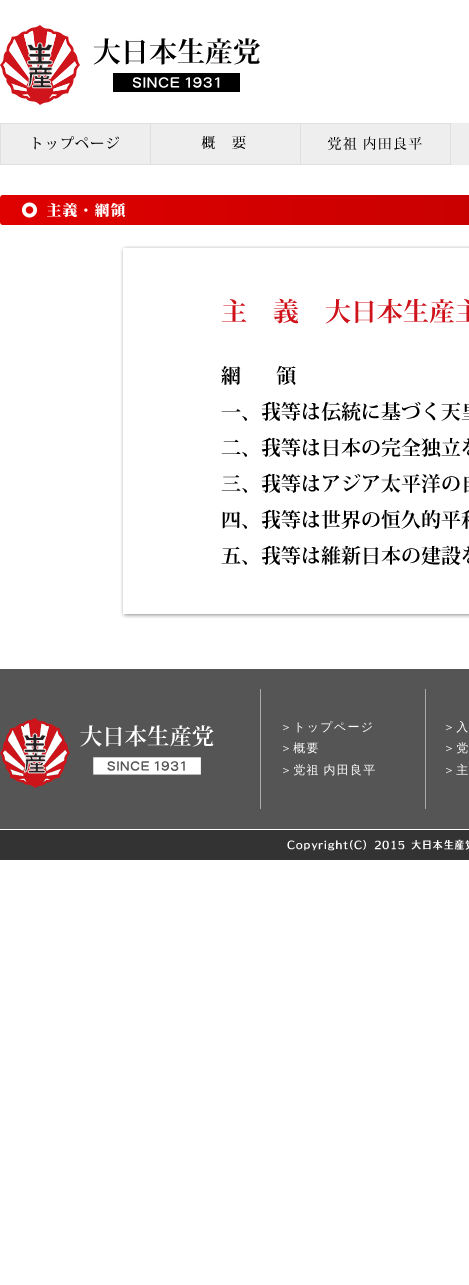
import math
import cairo

surface = cairo.ImageSurface(cairo.FORMAT_RGB24, 469, 1285)
ctx = cairo.Context(surface)
options = cairo.FontOptions()
options.set_hint_metrics(cairo.HINT_METRICS_OFF)
options.set_hint_style(cairo.HINT_STYLE_NONE)
ctx.set_font_options(options)
ctx.set_miter_limit(4)


def spaced_text(x, y, s, letter, word):
    ctx.move_to(x, y)
    for ch in s:
        ctx.show_text(ch)
        ctx.rel_move_to(letter + word * (ch == ' '), 0)


def picture(path, x, y, w, h):
    ctx.save()
    ctx.set_source_surface(cairo.ImageSurface.create_from_png(path), x, y)
    ctx.rectangle(x, y, w, h)
    ctx.fill()
    ctx.restore()


ctx.set_source_rgb(1, 1, 1)
ctx.paint()
ctx.set_source_rgb(0.933, 0.933, 0.933)
ctx.rectangle(451, 123, 18, 42)
ctx.fill()
picture("img1.png", 0, 25, 260, 80)
picture("img2.png", 0, 123, 151, 42)
picture("img3.png", 151, 123, 150, 42)
picture("img4.png", 301, 123, 150, 42)
picture("img5.png", 0, 195, 469, 30)
picture("img6.png", 120, 245, 349, 374)
ctx.set_source_rgb(0.333, 0.333, 0.333)
ctx.rectangle(0, 669, 469, 160)
ctx.fill()
picture("img7.png", 0, 718, 214, 70)
ctx.set_source_rgb(0.667, 0.667, 0.667)
ctx.rectangle(260, 689, 1, 120)
ctx.fill()
ctx.select_font_face("WenQuanYi Zen Hei Medium")
ctx.set_font_size(12)
ctx.set_source_rgb(1, 1, 1)
spaced_text(280, 731, "＞トップページ", 1.25, 0)
spaced_text(280, 752, "＞概要", 1.25, 0)
spaced_text(280, 774, "＞党祖 内田良平", 1.25, -1)
ctx.set_source_rgb(0.667, 0.667, 0.667)
ctx.rectangle(425, 689, 1, 120)
ctx.fill()
ctx.set_source_rgb(1, 1, 1)
spaced_text(443, 731, "＞入", 1.25, 0)
spaced_text(443, 752, "＞党", 1.25, 0)
spaced_text(443, 774, "＞主", 1.25, 0)
ctx.set_source_rgb(0.2, 0.2, 0.2)
ctx.rectangle(0, 830, 469, 30)
ctx.fill()
picture("img8.png", 287, 839, 182, 12)
surface.write_to_png("page.png")
